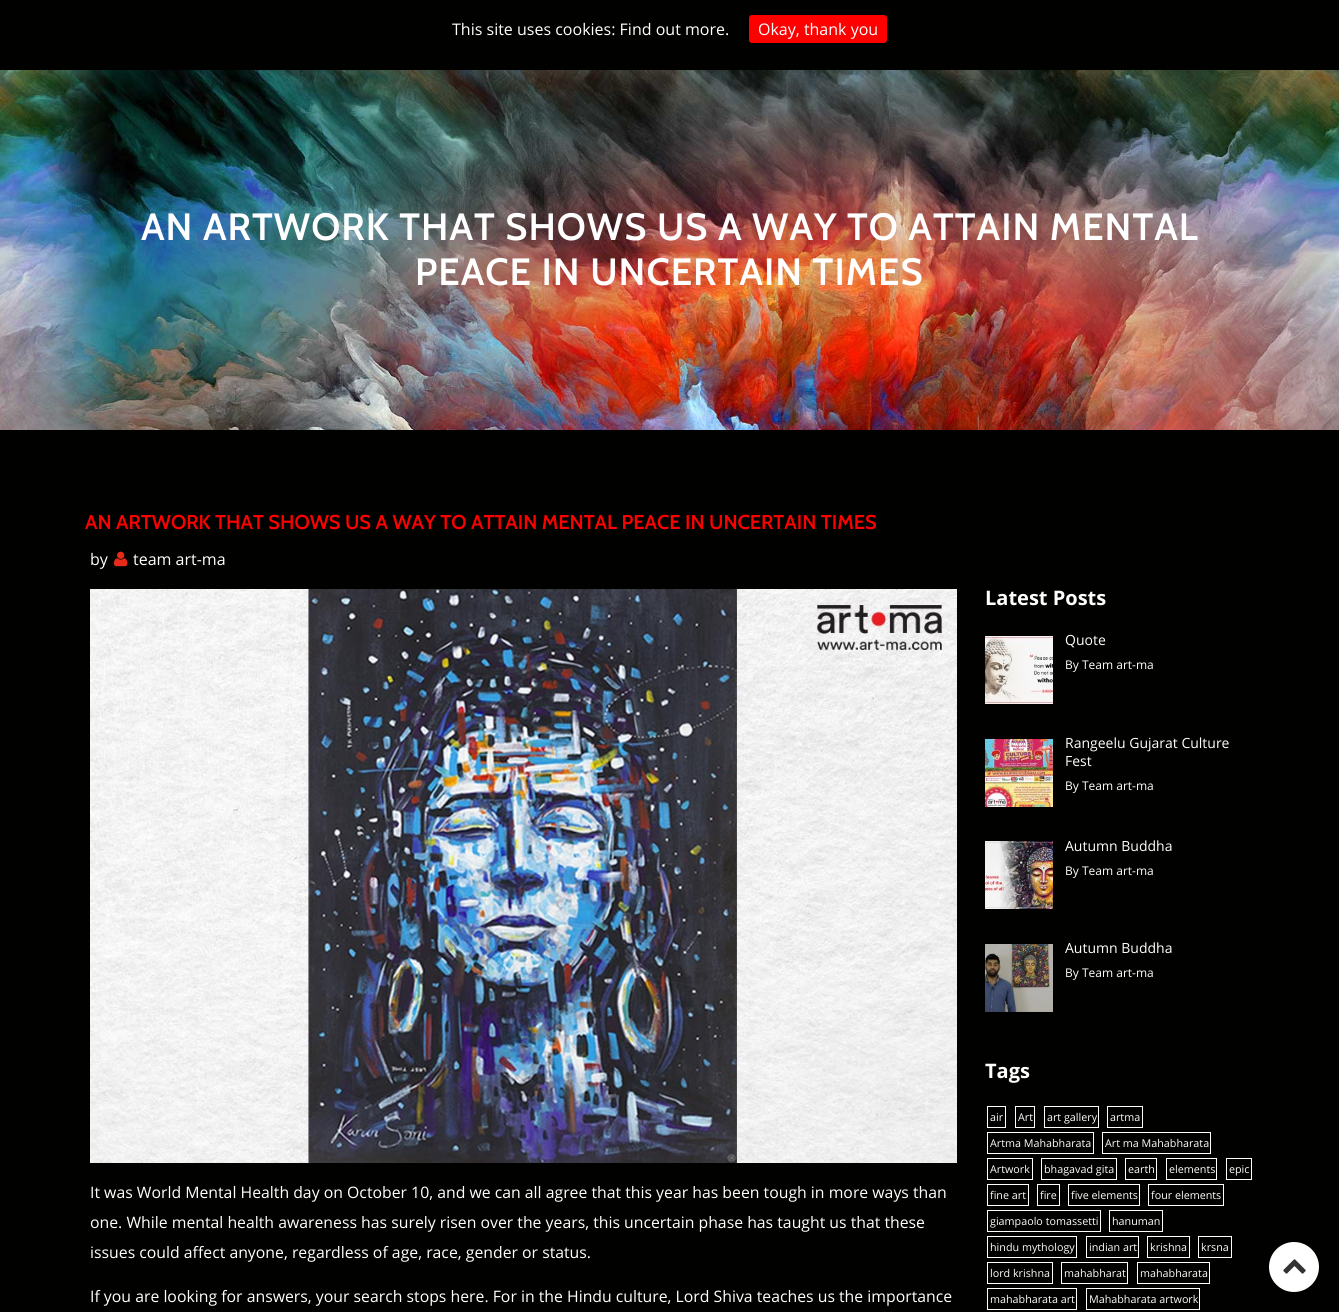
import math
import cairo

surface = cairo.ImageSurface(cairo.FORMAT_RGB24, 1339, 1312)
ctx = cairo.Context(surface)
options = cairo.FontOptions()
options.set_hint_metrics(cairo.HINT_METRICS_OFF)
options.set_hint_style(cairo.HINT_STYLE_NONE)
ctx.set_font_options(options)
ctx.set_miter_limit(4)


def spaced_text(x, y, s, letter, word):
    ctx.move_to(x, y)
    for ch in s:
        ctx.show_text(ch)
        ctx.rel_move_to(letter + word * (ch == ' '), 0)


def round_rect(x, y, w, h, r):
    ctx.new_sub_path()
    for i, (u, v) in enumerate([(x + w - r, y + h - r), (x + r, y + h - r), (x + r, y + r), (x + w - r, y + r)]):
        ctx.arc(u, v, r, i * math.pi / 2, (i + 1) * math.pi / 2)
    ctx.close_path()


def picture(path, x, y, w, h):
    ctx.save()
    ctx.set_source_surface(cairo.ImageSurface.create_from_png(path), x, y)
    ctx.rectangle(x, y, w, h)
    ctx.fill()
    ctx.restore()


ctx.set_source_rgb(0.004, 0.004, 0)
ctx.paint()
ctx.select_font_face("Open Sans")
ctx.set_font_size(16)
ctx.set_source_rgb(1, 1, 1)
ctx.move_to(452, 35)
ctx.show_text("This site uses cookies: Find out more.")
ctx.set_source_rgb(1, 0, 0)
round_rect(749, 15, 138, 28, 3)
ctx.fill()
ctx.set_source_rgb(1, 1, 1)
ctx.move_to(758, 35)
ctx.show_text("Okay, thank you")
picture("img1.png", 0, 70, 1339, 360)
ctx.select_font_face("Cabin SemiBold")
ctx.set_font_size(38)
spaced_text(141, 240, "AN ARTWORK THAT SHOWS US A WAY TO ATTAIN MENTAL", 1, 0)
spaced_text(415, 285, "PEACE IN UNCERTAIN TIMES", 1, 0)
ctx.set_font_size(20)
ctx.set_source_rgb(1, 0, 0)
ctx.move_to(85, 529)
ctx.show_text("AN ARTWORK THAT SHOWS US A WAY TO ATTAIN MENTAL PEACE IN UNCERTAIN TIMES")
ctx.select_font_face("Open Sans")
ctx.set_font_size(16)
ctx.set_source_rgb(1, 1, 1)
ctx.move_to(90, 565)
ctx.show_text("by")
picture("img2.png", 114, 551, 14, 16)
ctx.move_to(133, 565)
ctx.show_text("team art-ma")
picture("img3.png", 90, 589, 867, 574)
ctx.set_font_size(15.8)
ctx.move_to(90, 1198)
ctx.show_text("It was World Mental Health day on October 10, and we can all agree that this year has been tough in more ways than")
ctx.move_to(90, 1228)
ctx.show_text("one. While mental health awareness has surely risen over the years, this uncertain phase has taught us that these")
ctx.move_to(90, 1258)
ctx.show_text("issues could affect anyone, regardless of age, race, gender or status.")
ctx.move_to(90, 1302)
ctx.show_text("If you are looking for answers, your search stops here. For in the Hindu culture, Lord Shiva teaches us the importance")
ctx.select_font_face("Open Sans", cairo.FONT_SLANT_NORMAL, cairo.FONT_WEIGHT_BOLD)
ctx.set_font_size(20)
ctx.move_to(985, 605)
ctx.show_text("Latest Posts")
picture("img4.png", 985, 636, 68, 68)
ctx.select_font_face("Open Sans")
ctx.set_font_size(14)
ctx.move_to(1065, 645)
ctx.show_text("Quote")
ctx.set_font_size(12)
ctx.move_to(1065, 669)
ctx.show_text("By Team art-ma")
picture("img5.png", 985, 739, 68, 68)
ctx.set_font_size(14)
ctx.move_to(1065, 748)
ctx.show_text("Rangeelu Gujarat Culture")
ctx.move_to(1065, 766)
ctx.show_text("Fest")
ctx.set_font_size(12)
ctx.move_to(1065, 790)
ctx.show_text("By Team art-ma")
picture("img6.png", 985, 841, 68, 68)
ctx.set_font_size(14)
ctx.move_to(1065, 851)
ctx.show_text("Autumn Buddha")
ctx.set_font_size(12)
ctx.move_to(1065, 875)
ctx.show_text("By Team art-ma")
picture("img7.png", 985, 944, 68, 68)
ctx.set_font_size(14)
ctx.move_to(1065, 953)
ctx.show_text("Autumn Buddha")
ctx.set_font_size(12)
ctx.move_to(1065, 977)
ctx.show_text("By Team art-ma")
ctx.select_font_face("Open Sans", cairo.FONT_SLANT_NORMAL, cairo.FONT_WEIGHT_BOLD)
ctx.set_font_size(20)
ctx.move_to(985, 1078)
ctx.show_text("Tags")
ctx.rectangle(987.5, 1106.5, 18, 21)
ctx.set_line_width(1)
ctx.stroke()
ctx.select_font_face("Open Sans")
ctx.set_font_size(10.75)
ctx.move_to(990, 1121)
ctx.show_text("air")
ctx.rectangle(1015.5, 1106.5, 19, 21)
ctx.stroke()
ctx.move_to(1018, 1121)
ctx.show_text("Art")
ctx.rectangle(1044.5, 1106.5, 54, 21)
ctx.stroke()
ctx.move_to(1047, 1121)
ctx.show_text("art gallery")
ctx.rectangle(1107.5, 1106.5, 35, 21)
ctx.stroke()
ctx.move_to(1110, 1121)
ctx.show_text("artma")
ctx.rectangle(987.5, 1132.5, 106, 21)
ctx.stroke()
ctx.move_to(990, 1147)
ctx.show_text("Artma Mahabharata")
ctx.rectangle(1102.5, 1132.5, 108, 21)
ctx.stroke()
ctx.move_to(1105, 1147)
ctx.show_text("Art ma Mahabharata")
ctx.rectangle(987.5, 1158.5, 45, 21)
ctx.stroke()
ctx.move_to(990, 1173)
ctx.show_text("Artwork")
ctx.rectangle(1041.5, 1158.5, 75, 21)
ctx.stroke()
ctx.move_to(1044, 1173)
ctx.show_text("bhagavad gita")
ctx.rectangle(1125.5, 1158.5, 31, 21)
ctx.stroke()
ctx.move_to(1128, 1173)
ctx.show_text("earth")
ctx.rectangle(1166.5, 1158.5, 50, 21)
ctx.stroke()
ctx.move_to(1169, 1173)
ctx.show_text("elements")
ctx.rectangle(1226.5, 1158.5, 25, 21)
ctx.stroke()
ctx.move_to(1229, 1173)
ctx.show_text("epic")
ctx.rectangle(987.5, 1184.5, 41, 21)
ctx.stroke()
ctx.move_to(990, 1199)
ctx.show_text("fine art")
ctx.rectangle(1037.5, 1184.5, 22, 21)
ctx.stroke()
ctx.move_to(1040, 1199)
ctx.show_text("fire")
ctx.rectangle(1068.5, 1184.5, 71, 21)
ctx.stroke()
ctx.move_to(1071, 1199)
ctx.show_text("five elements")
ctx.rectangle(1148.5, 1184.5, 75, 21)
ctx.stroke()
ctx.move_to(1151, 1199)
ctx.show_text("four elements")
ctx.rectangle(987.5, 1210.5, 113, 21)
ctx.stroke()
ctx.move_to(990, 1225)
ctx.show_text("giampaolo tomassetti")
ctx.rectangle(1109.5, 1210.5, 53, 21)
ctx.stroke()
ctx.move_to(1112, 1225)
ctx.show_text("hanuman")
ctx.rectangle(987.5, 1236.5, 89, 21)
ctx.stroke()
ctx.move_to(990, 1251)
ctx.show_text("hindu mythology")
ctx.rectangle(1086.5, 1236.5, 52, 21)
ctx.stroke()
ctx.move_to(1089, 1251)
ctx.show_text("indian art")
ctx.rectangle(1147.5, 1236.5, 42, 21)
ctx.stroke()
ctx.move_to(1150, 1251)
ctx.show_text("krishna")
ctx.rectangle(1198.5, 1236.5, 33, 21)
ctx.stroke()
ctx.move_to(1201, 1251)
ctx.show_text("krsna")
ctx.rectangle(987.5, 1262.5, 65, 21)
ctx.stroke()
ctx.move_to(990, 1277)
ctx.show_text("lord krishna")
ctx.rectangle(1061.5, 1262.5, 66, 21)
ctx.stroke()
ctx.move_to(1064, 1277)
ctx.show_text("mahabharat")
ctx.rectangle(1137.5, 1262.5, 72, 21)
ctx.stroke()
ctx.move_to(1140, 1277)
ctx.show_text("mahabharata")
ctx.rectangle(987.5, 1288.5, 89, 21)
ctx.stroke()
ctx.move_to(990, 1303)
ctx.show_text("mahabharata art")
ctx.rectangle(1086.5, 1288.5, 113, 21)
ctx.stroke()
ctx.move_to(1089, 1303)
ctx.show_text("Mahabharata artwork")
ctx.new_path()
ctx.arc(1294, 1267, 25, 0, 2 * math.pi)
ctx.fill()
picture("img8.png", 1283, 1259, 23, 15)
surface.write_to_png("page.png")
